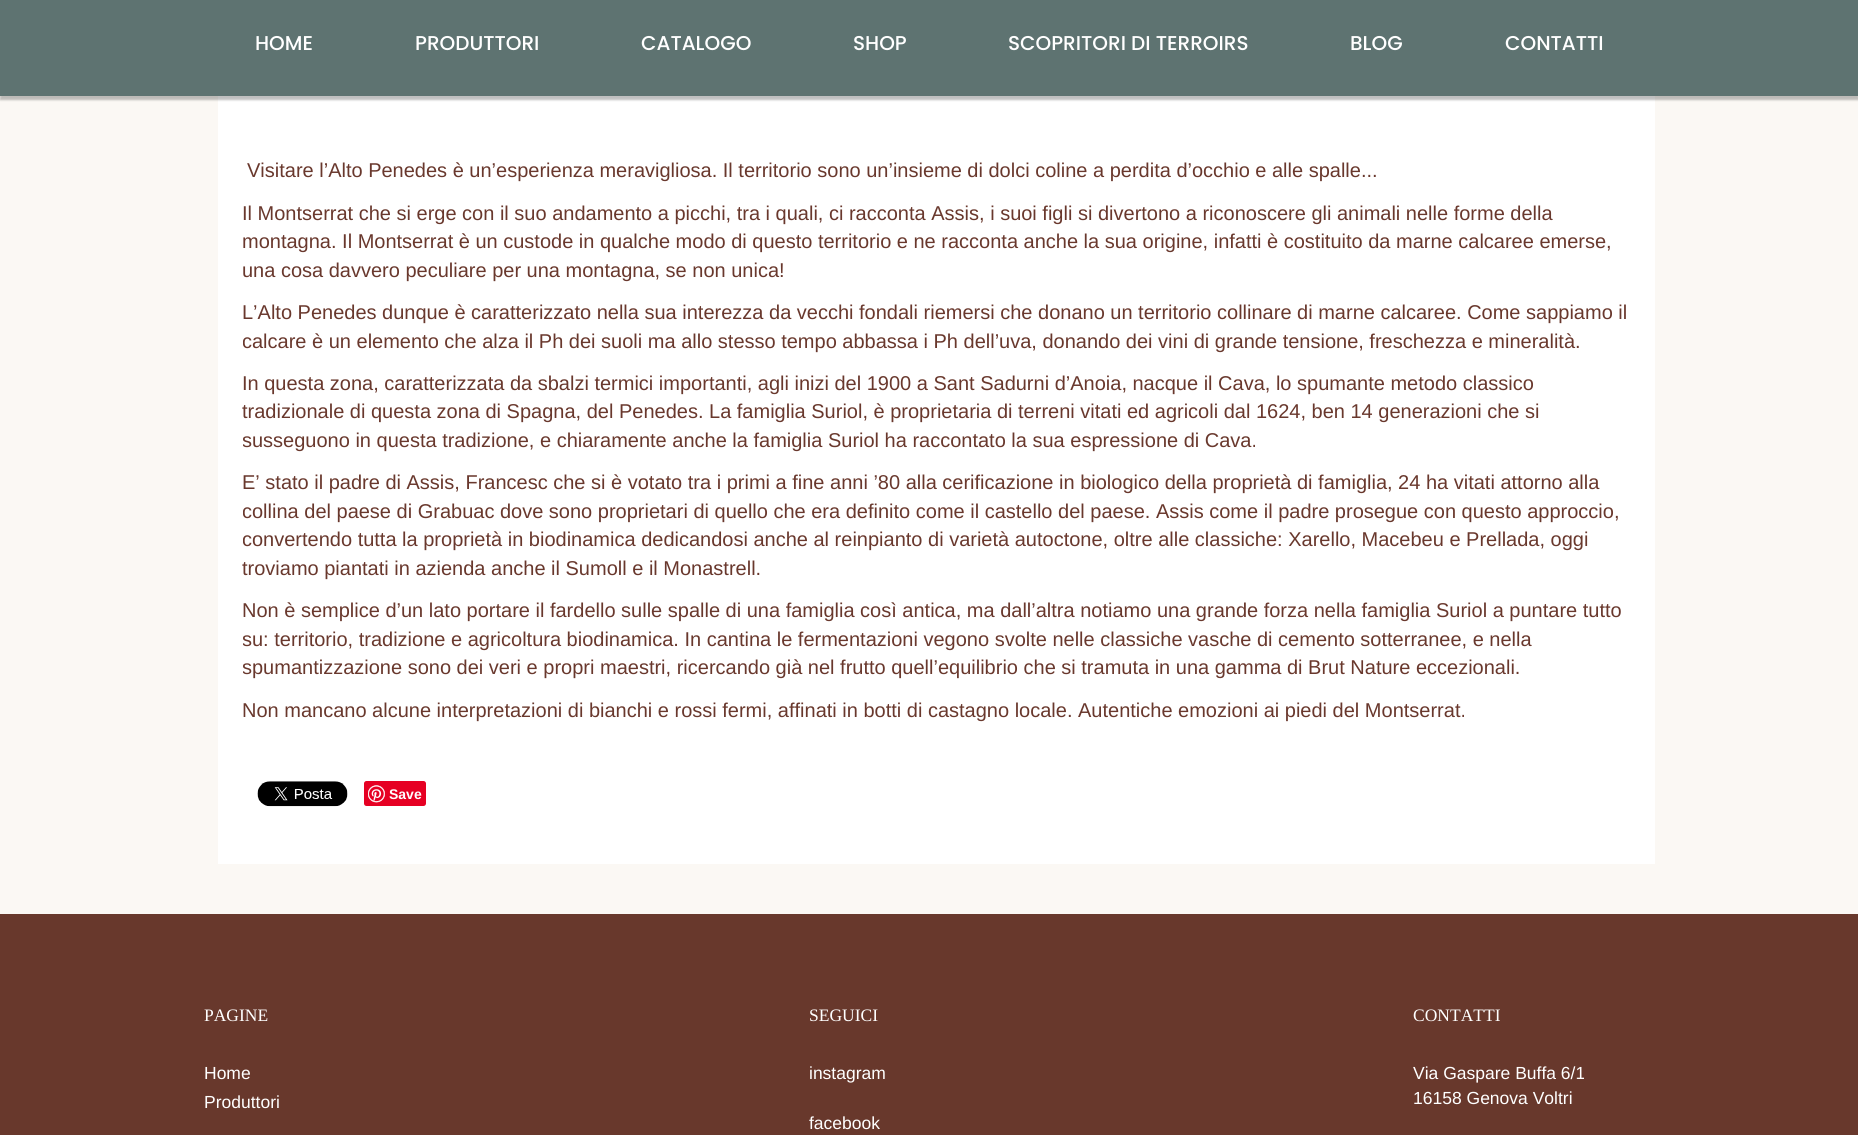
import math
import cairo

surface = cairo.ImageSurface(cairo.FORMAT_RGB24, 1858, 1135)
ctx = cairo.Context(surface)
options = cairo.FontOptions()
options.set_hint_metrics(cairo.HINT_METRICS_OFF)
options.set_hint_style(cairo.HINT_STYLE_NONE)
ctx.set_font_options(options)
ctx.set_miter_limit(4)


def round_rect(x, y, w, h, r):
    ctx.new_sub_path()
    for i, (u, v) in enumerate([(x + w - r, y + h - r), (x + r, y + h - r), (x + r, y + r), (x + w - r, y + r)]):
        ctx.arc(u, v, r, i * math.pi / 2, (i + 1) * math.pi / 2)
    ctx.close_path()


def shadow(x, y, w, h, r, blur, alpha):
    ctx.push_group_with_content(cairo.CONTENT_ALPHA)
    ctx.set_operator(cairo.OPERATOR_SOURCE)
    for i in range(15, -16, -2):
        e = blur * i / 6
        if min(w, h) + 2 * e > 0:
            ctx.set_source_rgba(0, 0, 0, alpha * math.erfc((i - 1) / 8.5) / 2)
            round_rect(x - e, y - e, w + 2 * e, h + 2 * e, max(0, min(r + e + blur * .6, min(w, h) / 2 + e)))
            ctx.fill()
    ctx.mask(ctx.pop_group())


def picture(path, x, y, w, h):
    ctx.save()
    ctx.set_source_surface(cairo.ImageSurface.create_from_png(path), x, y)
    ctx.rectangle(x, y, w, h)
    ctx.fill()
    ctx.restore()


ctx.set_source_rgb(0.984, 0.969, 0.957)
ctx.paint()
ctx.set_source_rgb(1, 1, 1)
ctx.rectangle(218, 96, 1437, 768)
ctx.fill()
ctx.set_source_rgb(0, 0, 0)
shadow(0, 4, 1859, 96, 0, 1, 0.25)
ctx.set_source_rgb(0.369, 0.451, 0.443)
ctx.rectangle(0, 0, 1858, 96)
ctx.fill()
ctx.select_font_face("Poppins Medium")
ctx.set_font_size(20)
ctx.set_source_rgb(1, 1, 1)
ctx.move_to(255, 50)
ctx.show_text("HOME")
ctx.move_to(415, 50)
ctx.show_text("PRODUTTORI")
ctx.move_to(641, 50)
ctx.show_text("CATALOGO")
ctx.move_to(853, 50)
ctx.show_text("SHOP")
ctx.move_to(1008, 50)
ctx.show_text("SCOPRITORI DI TERROIRS")
ctx.move_to(1350, 50)
ctx.show_text("BLOG")
ctx.move_to(1505, 50)
ctx.show_text("CONTATTI")
ctx.select_font_face("Liberation Sans")
ctx.set_source_rgb(0.412, 0.22, 0.176)
ctx.move_to(247, 177)
ctx.show_text("Visitare l’Alto Penedes è un’esperienza meravigliosa. Il territorio sono un’insieme di dolci coline a perdita d’occhio e alle spalle...")
ctx.move_to(242, 220)
ctx.show_text("Il Montserrat che si erge con il suo andamento a picchi, tra i quali, ci racconta Assis, i suoi figli si divertono a riconoscere gli animali nelle forme della")
ctx.move_to(242, 248)
ctx.show_text("montagna. Il Montserrat è un custode in qualche modo di questo territorio e ne racconta anche la sua origine, infatti è costituito da marne calcaree emerse,")
ctx.move_to(242, 277)
ctx.show_text("una cosa davvero peculiare per una montagna, se non unica!")
ctx.move_to(242, 319)
ctx.show_text("L’Alto Penedes dunque è caratterizzato nella sua interezza da vecchi fondali riemersi che donano un territorio collinare di marne calcaree. Come sappiamo il")
ctx.save()
ctx.rectangle(243, 0, 1387, 815)
ctx.clip()
ctx.move_to(242, 348)
ctx.show_text("calcare è un elemento che alza il Ph dei suoli ma allo stesso tempo abbassa i Ph dell’uva, donando dei vini di grande tensione, freschezza e mineralità.")
ctx.restore()
ctx.move_to(242, 390)
ctx.show_text("In questa zona, caratterizzata da sbalzi termici importanti, agli inizi del 1900 a Sant Sadurni d’Anoia, nacque il Cava, lo spumante metodo classico")
ctx.move_to(242, 418)
ctx.show_text("tradizionale di questa zona di Spagna, del Penedes. La famiglia Suriol, è proprietaria di terreni vitati ed agricoli dal 1624, ben 14 generazioni che si")
ctx.save()
ctx.rectangle(243, 0, 1387, 815)
ctx.clip()
ctx.move_to(242, 447)
ctx.show_text("susseguono in questa tradizione, e chiaramente anche la famiglia Suriol ha raccontato la sua espressione di Cava.")
ctx.restore()
ctx.move_to(242, 489)
ctx.show_text("E’ stato il padre di Assis, Francesc che si è votato tra i primi a fine anni ’80 alla cerificazione in biologico della proprietà di famiglia, 24 ha vitati attorno alla")
ctx.save()
ctx.rectangle(243, 0, 1387, 815)
ctx.clip()
ctx.move_to(242, 518)
ctx.show_text("collina del paese di Grabuac dove sono proprietari di quello che era definito come il castello del paese. Assis come il padre prosegue con questo approccio,")
ctx.move_to(242, 546)
ctx.show_text("convertendo tutta la proprietà in biodinamica dedicandosi anche al reinpianto di varietà autoctone, oltre alle classiche: Xarello, Macebeu e Prellada, oggi")
ctx.restore()
ctx.move_to(242, 575)
ctx.show_text("troviamo piantati in azienda anche il Sumoll e il Monastrell.")
ctx.move_to(242, 617)
ctx.show_text("Non è semplice d’un lato portare il fardello sulle spalle di una famiglia così antica, ma dall’altra notiamo una grande forza nella famiglia Suriol a puntare tutto")
ctx.save()
ctx.rectangle(243, 0, 1387, 815)
ctx.clip()
ctx.move_to(242, 646)
ctx.show_text("su: territorio, tradizione e agricoltura biodinamica. In cantina le fermentazioni vegono svolte nelle classiche vasche di cemento sotterranee, e nella")
ctx.move_to(242, 674)
ctx.show_text("spumantizzazione sono dei veri e propri maestri, ricercando già nel frutto quell’equilibrio che si tramuta in una gamma di Brut Nature eccezionali.")
ctx.restore()
ctx.move_to(242, 717)
ctx.show_text("Non mancano alcune interpretazioni di bianchi e rossi fermi, affinati in botti di castagno locale. Autentiche emozioni ai piedi del Montserrat.")
picture("img1.png", 257, 781, 91, 26)
ctx.set_source_rgb(0.902, 0, 0.137)
round_rect(364, 781, 62, 25, 2.5)
ctx.fill()
picture("img2.png", 368, 785, 17, 18)
ctx.select_font_face("Liberation Sans", cairo.FONT_SLANT_NORMAL, cairo.FONT_WEIGHT_BOLD)
ctx.set_font_size(14)
ctx.set_source_rgb(1, 1, 1)
ctx.move_to(389, 799)
ctx.show_text("Save")
ctx.set_source_rgb(0.408, 0.22, 0.173)
ctx.rectangle(0, 914, 1858, 221)
ctx.fill()
ctx.select_font_face("Liberation Serif")
ctx.set_font_size(17.5)
ctx.set_source_rgb(1, 1, 1)
ctx.move_to(204, 1021)
ctx.show_text("PAGINE")
ctx.select_font_face("Liberation Sans")
ctx.move_to(204, 1079)
ctx.show_text("Home")
ctx.move_to(204, 1108)
ctx.show_text("Produttori")
ctx.select_font_face("Liberation Serif")
ctx.move_to(809, 1021)
ctx.show_text("SEGUICI")
ctx.select_font_face("Liberation Sans")
ctx.move_to(809, 1079)
ctx.show_text("instagram")
ctx.move_to(809, 1129)
ctx.show_text("facebook")
ctx.select_font_face("Liberation Serif")
ctx.move_to(1413, 1021)
ctx.show_text("CONTATTI")
ctx.select_font_face("Liberation Sans")
ctx.move_to(1413, 1079)
ctx.show_text("Via Gaspare Buffa 6/1")
ctx.move_to(1413, 1104)
ctx.show_text("16158 Genova Voltri")
surface.write_to_png("page.png")
